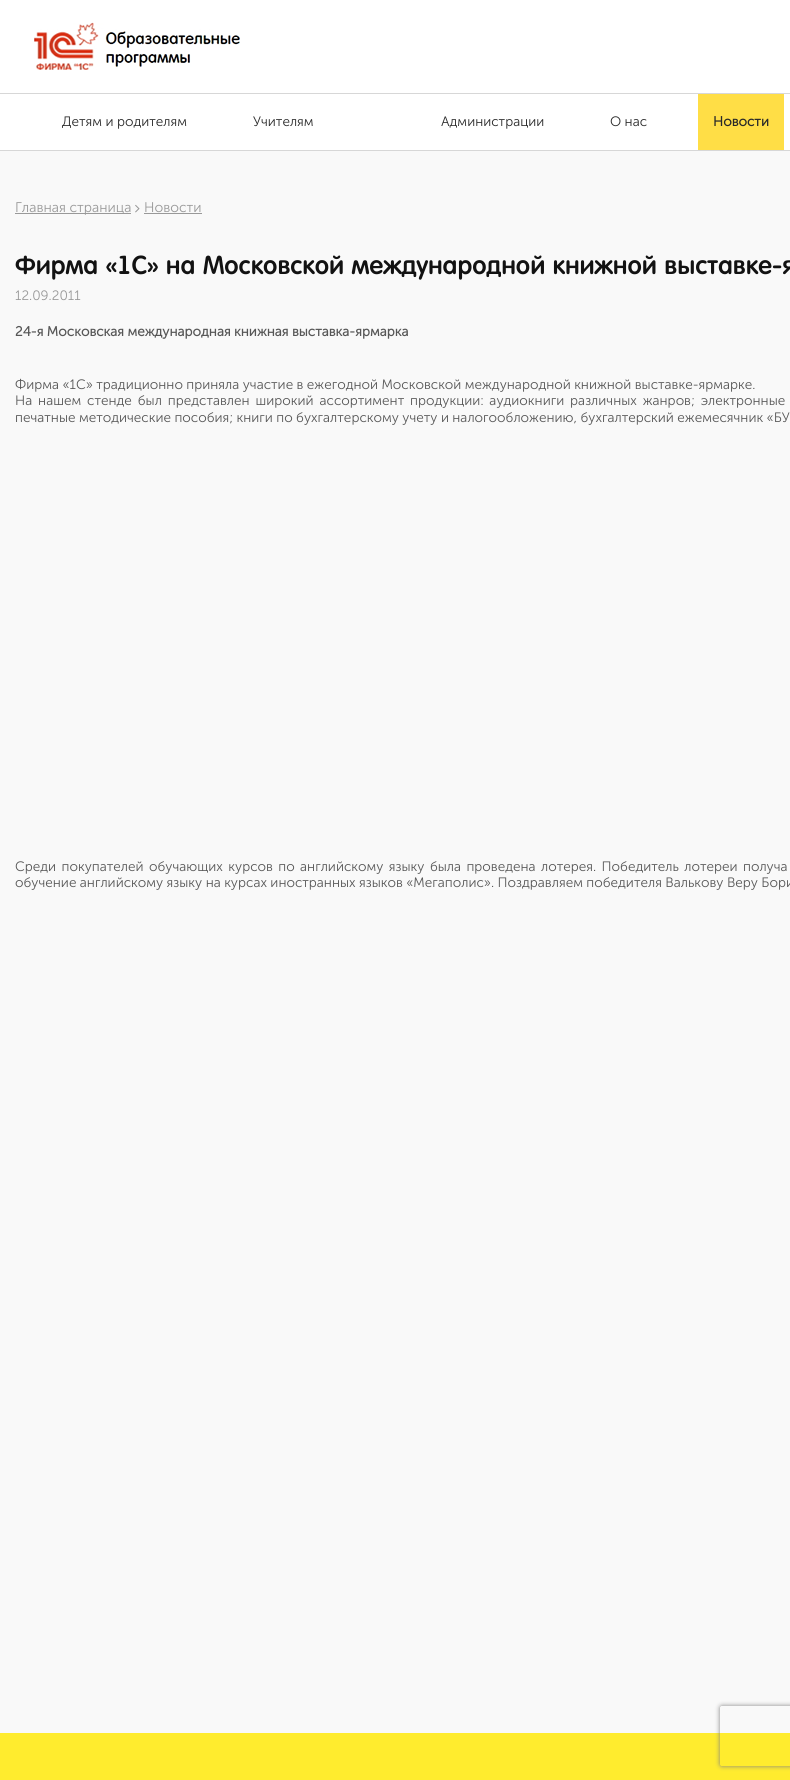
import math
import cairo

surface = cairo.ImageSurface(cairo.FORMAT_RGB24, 790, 1780)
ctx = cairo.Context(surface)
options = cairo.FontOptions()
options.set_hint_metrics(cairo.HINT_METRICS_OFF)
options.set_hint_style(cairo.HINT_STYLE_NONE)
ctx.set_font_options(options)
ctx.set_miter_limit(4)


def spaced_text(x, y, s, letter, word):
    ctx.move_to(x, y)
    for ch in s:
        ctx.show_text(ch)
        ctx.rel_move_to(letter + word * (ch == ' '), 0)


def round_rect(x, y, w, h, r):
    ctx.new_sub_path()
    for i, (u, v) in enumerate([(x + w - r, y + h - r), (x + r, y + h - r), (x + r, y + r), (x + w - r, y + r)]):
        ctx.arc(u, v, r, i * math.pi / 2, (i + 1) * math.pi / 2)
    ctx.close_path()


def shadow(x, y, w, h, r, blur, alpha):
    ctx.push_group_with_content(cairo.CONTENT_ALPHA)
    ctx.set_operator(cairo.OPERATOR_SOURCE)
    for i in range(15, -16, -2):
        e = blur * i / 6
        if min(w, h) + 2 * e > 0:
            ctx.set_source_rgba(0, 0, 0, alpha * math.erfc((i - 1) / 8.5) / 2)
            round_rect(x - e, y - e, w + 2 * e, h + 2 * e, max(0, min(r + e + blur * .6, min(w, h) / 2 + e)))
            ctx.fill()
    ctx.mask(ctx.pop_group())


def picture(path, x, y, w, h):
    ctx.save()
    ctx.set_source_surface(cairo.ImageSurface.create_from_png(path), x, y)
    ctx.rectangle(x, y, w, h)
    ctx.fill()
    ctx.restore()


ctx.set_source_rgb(0.976, 0.976, 0.976)
ctx.paint()
ctx.set_source_rgb(1, 1, 1)
ctx.rectangle(0, 0, 790, 93)
ctx.fill()
ctx.set_source_rgb(0.843, 0.843, 0.843)
ctx.rectangle(0, 93, 790, 1)
ctx.fill()
picture("img1.png", 34, 22, 206, 48)
ctx.set_source_rgb(1, 1, 1)
ctx.rectangle(0, 94, 790, 56)
ctx.fill()
ctx.set_source_rgb(0.843, 0.843, 0.843)
ctx.rectangle(0, 150, 790, 1)
ctx.fill()
ctx.select_font_face("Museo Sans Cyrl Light")
ctx.set_font_size(13.6)
ctx.set_source_rgb(0.161, 0.161, 0.161)
ctx.move_to(62, 126)
ctx.show_text("Детям и родителям")
ctx.move_to(253, 126)
ctx.show_text("Учителям")
ctx.move_to(441, 126)
ctx.show_text("Администрации")
ctx.move_to(610, 126)
ctx.show_text("О нас")
ctx.set_source_rgb(1, 0.871, 0.275)
ctx.rectangle(698, 94, 86, 56)
ctx.fill()
ctx.select_font_face("Museo Sans Cyrl", cairo.FONT_SLANT_NORMAL, cairo.FONT_WEIGHT_BOLD)
ctx.set_source_rgb(0.161, 0.161, 0.161)
ctx.move_to(713, 126)
ctx.show_text("Новости")
ctx.set_source_rgb(0.6, 0.6, 0.6)
ctx.rectangle(15, 213, 116, 1)
ctx.fill()
ctx.select_font_face("Museo Sans Cyrl Light")
ctx.set_font_size(14)
ctx.move_to(15, 212)
ctx.show_text("Главная страница")
picture("img2.png", 135, 204, 5, 9)
ctx.move_to(144, 212)
ctx.show_text("Новости")
ctx.rectangle(144, 213, 58, 1)
ctx.fill()
ctx.select_font_face("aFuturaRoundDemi")
ctx.set_font_size(25)
ctx.set_source_rgb(0.071, 0.071, 0.071)
ctx.move_to(15, 274)
ctx.show_text("Фирма «1С» на Московской международной книжной выставке-я")
ctx.select_font_face("Museo Sans Cyrl Light")
ctx.set_font_size(13.6)
ctx.set_source_rgb(0.6, 0.6, 0.6)
ctx.move_to(15, 300)
ctx.show_text("12.09.2011")
ctx.select_font_face("Museo Sans Cyrl", cairo.FONT_SLANT_NORMAL, cairo.FONT_WEIGHT_BOLD)
ctx.set_source_rgb(0.341, 0.341, 0.341)
ctx.move_to(15, 336)
ctx.show_text("24-я Московская международная книжная выставка-ярмарка")
ctx.select_font_face("Museo Sans Cyrl Light")
ctx.move_to(15, 389)
ctx.show_text("Фирма «1С» традиционно приняла участие в ежегодной Московской международной книжной выставке-ярмарке.")
spaced_text(15, 405, "На нашем стенде был представлен широкий ассортимент продукции: аудиокниги различных жанров; электронные", 0, 2.5)
ctx.move_to(15, 422)
ctx.show_text("печатные методические пособия; книги по бухгалтерскому учету и налогообложению, бухгалтерский ежемесячник «БУ")
spaced_text(15, 871, "Среди покупателей обучающих курсов по английскому языку была проведена лотерея. Победитель лотереи получа", 0, 2)
ctx.move_to(15, 887)
ctx.show_text("обучение английскому языку на курсах иностранных языков «Мегаполис». Поздравляем победителя Валькову Веру Бори")
ctx.set_source_rgb(1, 0.925, 0.18)
ctx.rectangle(0, 1733, 790, 47)
ctx.fill()
ctx.save()
ctx.set_fill_rule(cairo.FILL_RULE_EVEN_ODD)
ctx.new_path()
ctx.move_to(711, 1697)
ctx.line_to(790, 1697)
ctx.line_to(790, 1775)
ctx.line_to(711, 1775)
ctx.close_path()
ctx.move_to(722, 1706)
ctx.line_to(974, 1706)
ctx.curve_to(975, 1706, 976, 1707, 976, 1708)
ctx.line_to(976, 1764)
ctx.curve_to(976, 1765, 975, 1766, 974, 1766)
ctx.line_to(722, 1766)
ctx.curve_to(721, 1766, 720, 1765, 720, 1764)
ctx.line_to(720, 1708)
ctx.curve_to(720, 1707, 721, 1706, 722, 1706)
ctx.close_path()
ctx.clip()
ctx.set_source_rgb(0.502, 0.502, 0.502)
shadow(720, 1706, 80, 60, 2, 2.5, 1)
ctx.restore()
surface.write_to_png("page.png")
